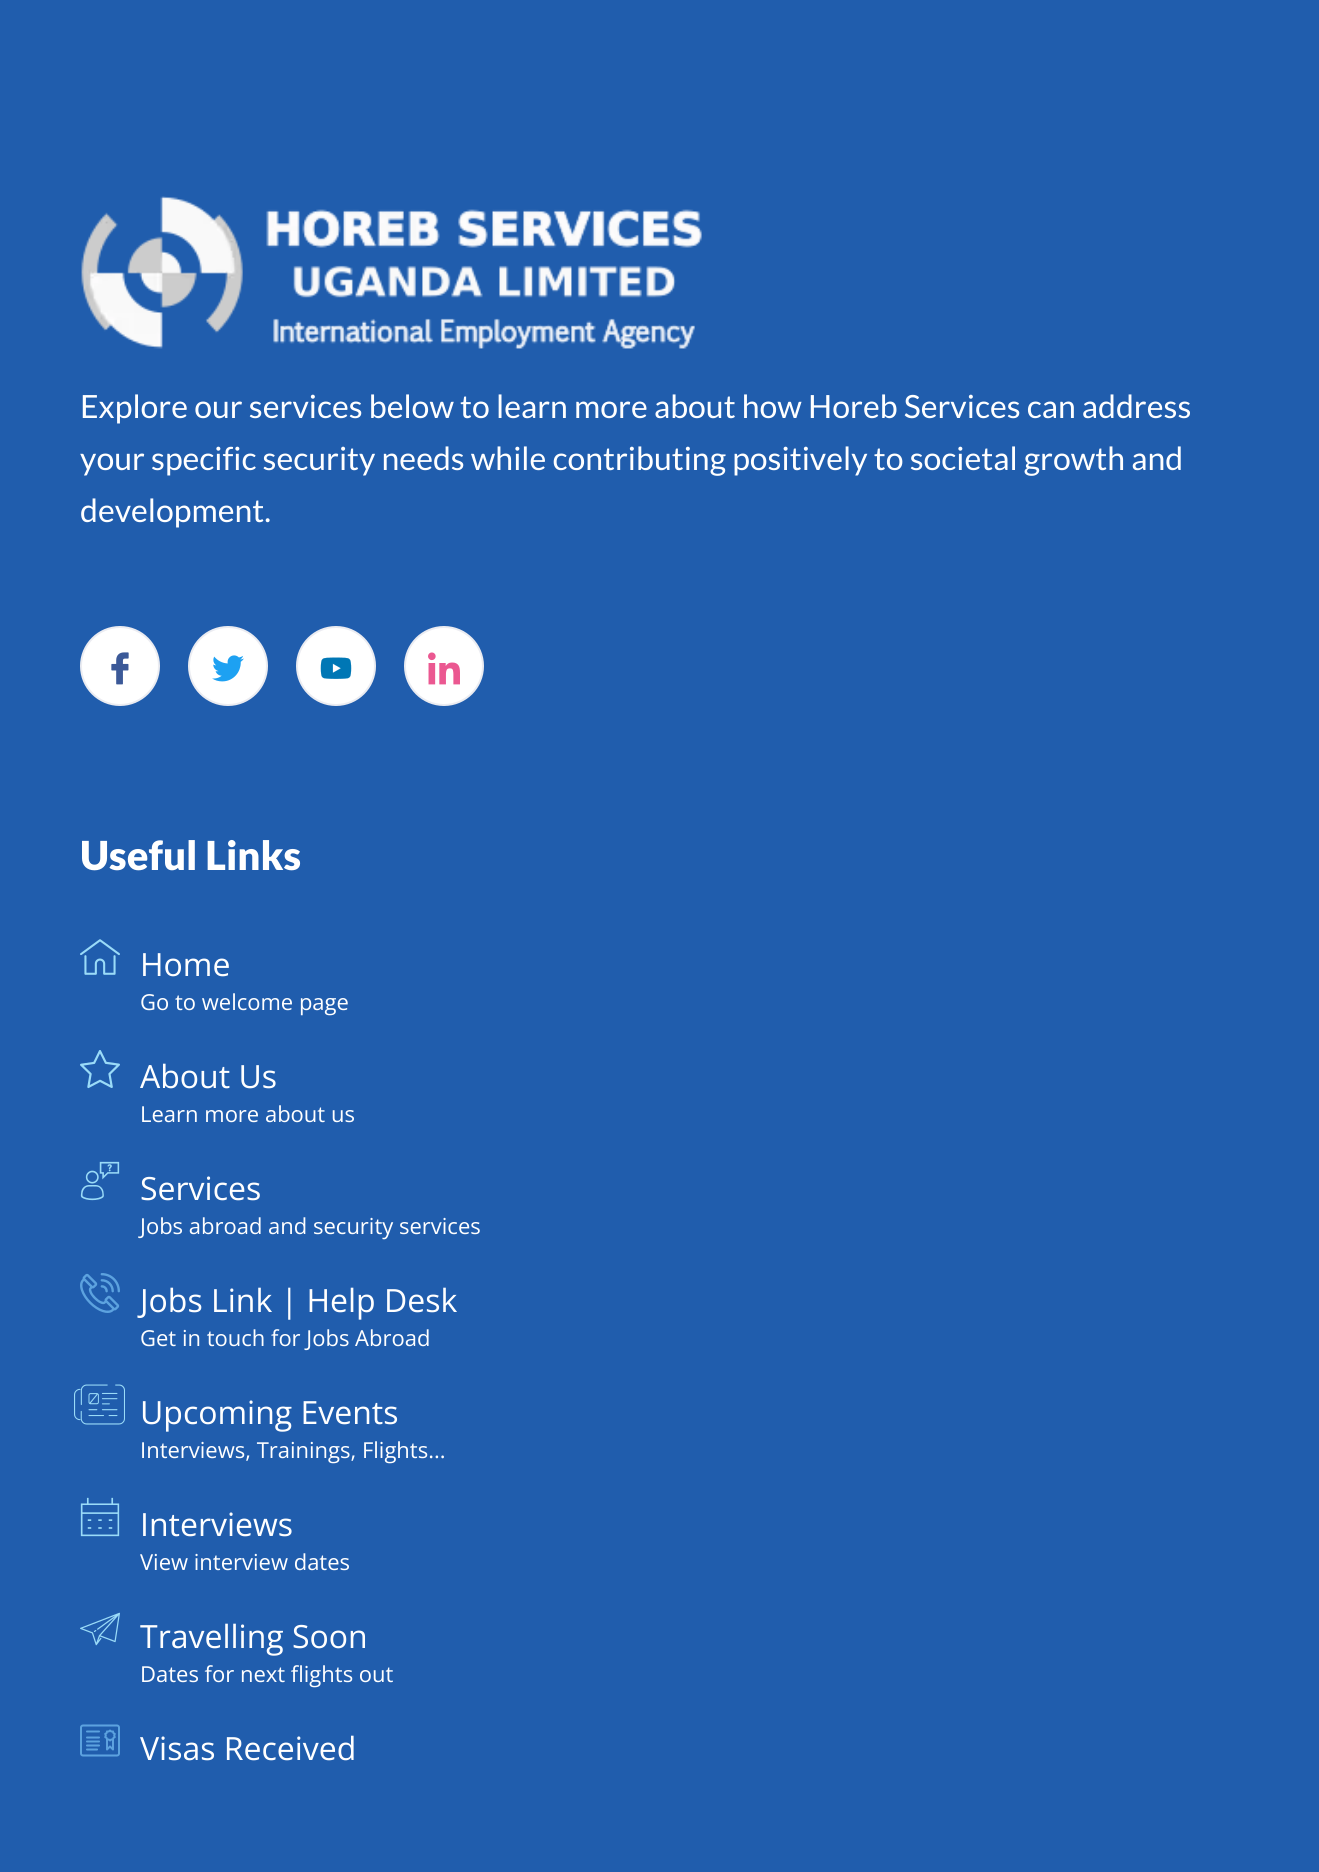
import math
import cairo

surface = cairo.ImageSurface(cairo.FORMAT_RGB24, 1319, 1872)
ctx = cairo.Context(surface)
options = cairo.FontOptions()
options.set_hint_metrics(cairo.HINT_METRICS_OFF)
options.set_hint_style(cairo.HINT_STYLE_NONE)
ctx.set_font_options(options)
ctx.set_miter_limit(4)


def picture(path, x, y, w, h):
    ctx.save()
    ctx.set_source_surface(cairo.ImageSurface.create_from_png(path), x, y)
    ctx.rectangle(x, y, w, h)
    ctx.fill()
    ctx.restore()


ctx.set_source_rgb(0.125, 0.365, 0.678)
ctx.paint()
picture("img1.png", 81, 196, 621, 153)
ctx.select_font_face("Lato")
ctx.set_font_size(32)
ctx.set_source_rgb(1, 1, 1)
ctx.move_to(80, 418)
ctx.show_text("Explore our services below to learn more about how Horeb Services can address")
ctx.move_to(80, 470)
ctx.show_text("your specific security needs while contributing positively to societal growth and")
ctx.move_to(80, 522)
ctx.show_text("development.")
ctx.new_path()
ctx.arc(120, 666, 39, 0, 2 * math.pi)
ctx.fill_preserve()
ctx.set_source_rgb(0.918, 0.922, 0.945)
ctx.stroke()
picture("img2.png", 111, 652, 18, 33)
ctx.set_source_rgb(1, 1, 1)
ctx.arc(228, 666, 39, 0, 2 * math.pi)
ctx.fill_preserve()
ctx.set_source_rgb(0.918, 0.922, 0.945)
ctx.stroke()
picture("img3.png", 212, 655, 32, 27)
ctx.set_source_rgb(1, 1, 1)
ctx.arc(336, 666, 39, 0, 2 * math.pi)
ctx.fill_preserve()
ctx.set_source_rgb(0.918, 0.922, 0.945)
ctx.stroke()
picture("img4.png", 320, 657, 32, 22)
ctx.set_source_rgb(1, 1, 1)
ctx.arc(444, 666, 39, 0, 2 * math.pi)
ctx.fill_preserve()
ctx.set_source_rgb(0.918, 0.922, 0.945)
ctx.stroke()
picture("img5.png", 428, 652, 32, 33)
ctx.select_font_face("Lato Black")
ctx.set_font_size(40)
ctx.set_source_rgb(1, 1, 1)
ctx.move_to(80, 870)
ctx.show_text("Useful Links")
picture("img6.png", 80, 939, 40, 36)
ctx.select_font_face("Open Sans")
ctx.set_font_size(32)
ctx.move_to(140, 976)
ctx.show_text("Home")
ctx.set_font_size(22)
ctx.move_to(140, 1010)
ctx.show_text("Go to welcome page")
picture("img7.png", 80, 1050, 40, 39)
ctx.set_font_size(32)
ctx.move_to(140, 1088)
ctx.show_text("About Us")
ctx.set_font_size(22)
ctx.move_to(140, 1122)
ctx.show_text("Learn more about us")
picture("img8.png", 80, 1161, 40, 40)
ctx.set_font_size(32)
ctx.move_to(140, 1200)
ctx.show_text("Services")
ctx.set_font_size(22)
ctx.move_to(140, 1234)
ctx.show_text("Jobs abroad and security services")
picture("img9.png", 80, 1273, 40, 40)
ctx.set_font_size(32)
ctx.move_to(140, 1312)
ctx.show_text("Jobs Link | Help Desk")
ctx.set_font_size(22)
ctx.move_to(140, 1346)
ctx.show_text("Get in touch for Jobs Abroad")
picture("img10.png", 74, 1384, 51, 41)
ctx.set_font_size(32)
ctx.move_to(140, 1424)
ctx.show_text("Upcoming Events")
ctx.set_font_size(22)
ctx.move_to(140, 1458)
ctx.show_text("Interviews, Trainings, Flights...")
picture("img11.png", 80, 1497, 40, 40)
ctx.set_font_size(32)
ctx.move_to(140, 1536)
ctx.show_text("Interviews")
ctx.set_font_size(22)
ctx.move_to(140, 1570)
ctx.show_text("View interview dates")
picture("img12.png", 80, 1612, 40, 34)
ctx.set_font_size(32)
ctx.move_to(140, 1648)
ctx.show_text("Travelling Soon")
ctx.set_font_size(22)
ctx.move_to(140, 1682)
ctx.show_text("Dates for next flights out")
picture("img13.png", 80, 1724, 40, 33)
ctx.set_font_size(32)
ctx.move_to(140, 1760)
ctx.show_text("Visas Received")
surface.write_to_png("page.png")
